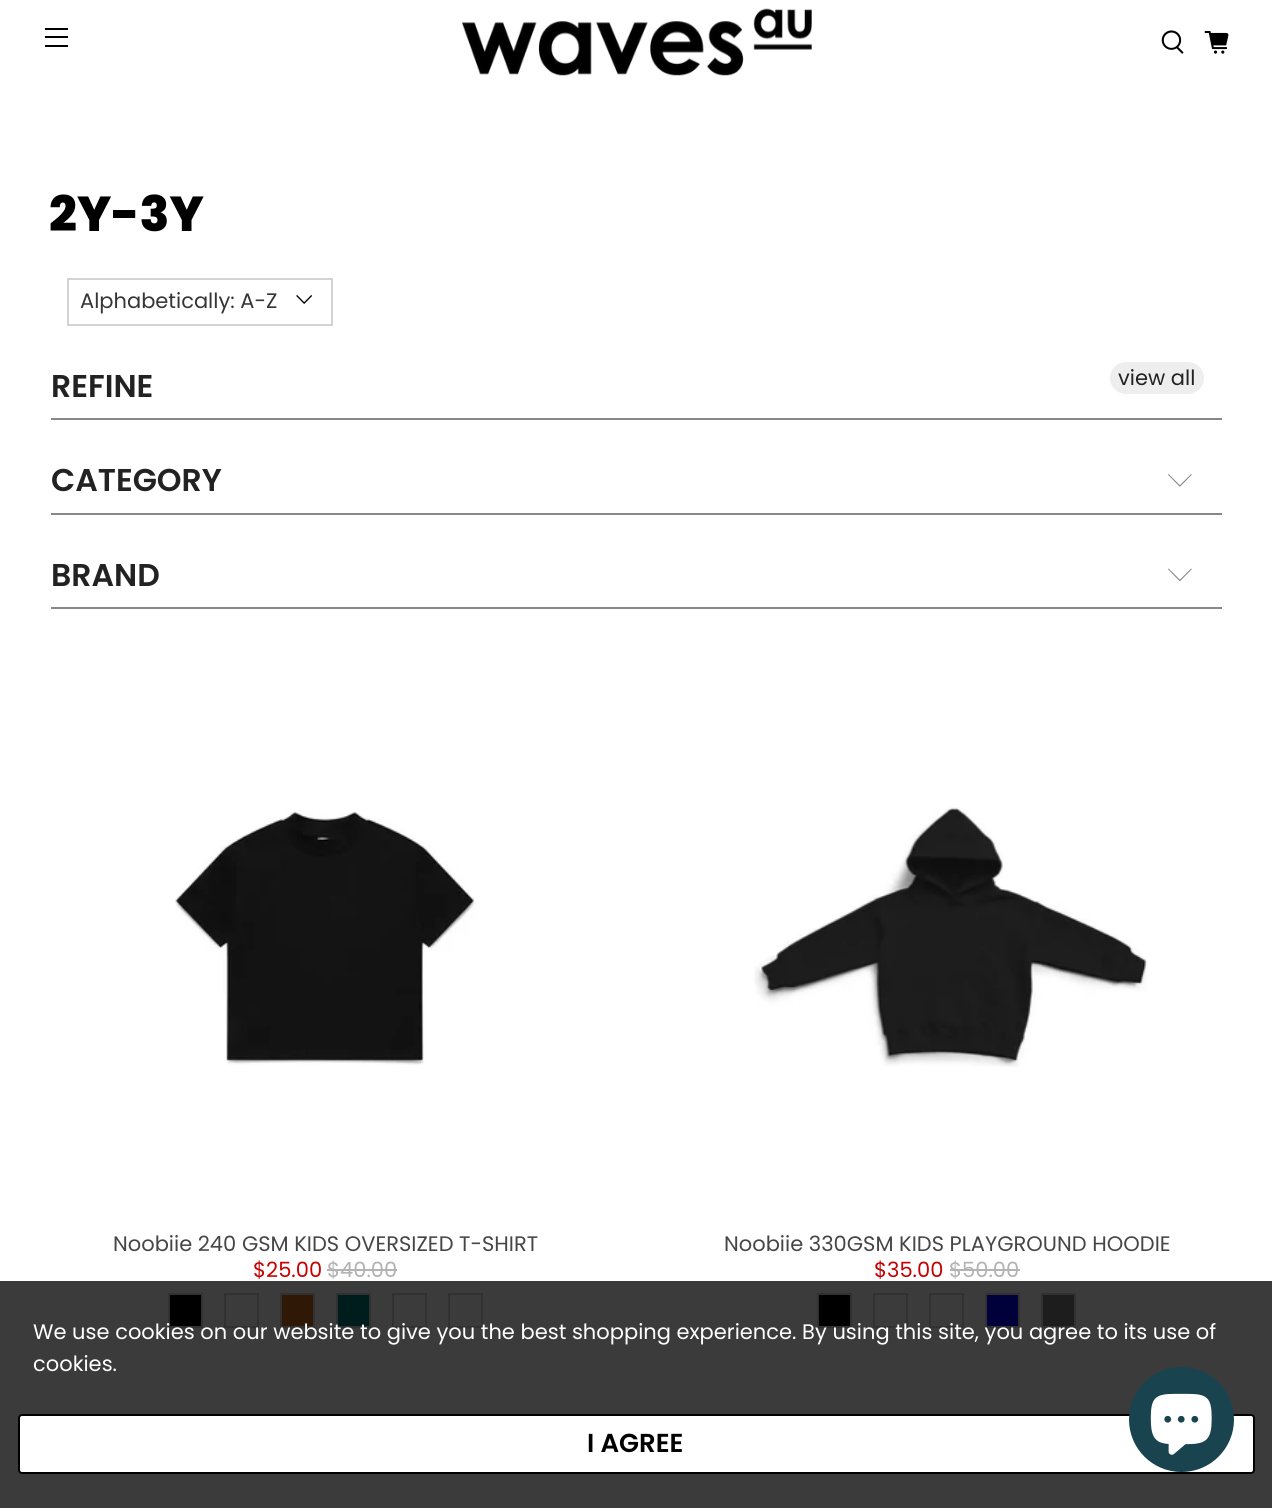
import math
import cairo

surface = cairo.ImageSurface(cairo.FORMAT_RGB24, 1272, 1508)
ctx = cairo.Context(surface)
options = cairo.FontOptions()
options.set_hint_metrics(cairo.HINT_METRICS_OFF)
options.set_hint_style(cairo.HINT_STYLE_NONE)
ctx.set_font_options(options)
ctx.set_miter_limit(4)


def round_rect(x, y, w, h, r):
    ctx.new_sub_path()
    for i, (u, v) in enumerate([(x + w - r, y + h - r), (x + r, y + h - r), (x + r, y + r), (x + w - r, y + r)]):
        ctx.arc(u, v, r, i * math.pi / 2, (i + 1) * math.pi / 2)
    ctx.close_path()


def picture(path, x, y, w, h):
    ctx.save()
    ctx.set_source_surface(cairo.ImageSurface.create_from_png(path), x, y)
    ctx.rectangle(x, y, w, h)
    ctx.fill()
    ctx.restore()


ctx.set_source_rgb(1, 1, 1)
ctx.paint()
ctx.set_source_rgb(0.231, 0.231, 0.231)
ctx.rectangle(0, 1281, 1272, 227)
ctx.fill()
ctx.set_source_rgb(0, 0, 0)
ctx.rectangle(45, 28, 23, 2)
ctx.fill()
ctx.rectangle(45, 36, 23, 2)
ctx.fill()
ctx.rectangle(45, 45, 23, 2)
ctx.fill()
picture("img1.png", 462, 8, 350, 68)
picture("img2.png", 1161, 30, 23, 24)
picture("img3.png", 1204, 31, 25, 23)
ctx.select_font_face("Poppins ExtraBold")
ctx.set_font_size(49)
ctx.move_to(49, 231)
ctx.show_text("2Y-3Y")
ctx.rectangle(68, 279, 264, 46)
ctx.set_source_rgb(0.827, 0.827, 0.827)
ctx.stroke()
ctx.select_font_face("Poppins")
ctx.set_font_size(21)
ctx.set_source_rgb(0.212, 0.212, 0.212)
ctx.move_to(80, 308)
ctx.show_text("Alphabetically: A-Z")
picture("img4.png", 296, 295, 17, 9)
ctx.set_source_rgb(0.533, 0.533, 0.533)
ctx.rectangle(51, 418, 1171, 2)
ctx.fill()
ctx.select_font_face("Poppins SemiBold")
ctx.set_font_size(31.5)
ctx.set_source_rgb(0.133, 0.133, 0.133)
ctx.move_to(51, 397)
ctx.show_text("REFINE")
ctx.set_source_rgb(0.933, 0.933, 0.933)
round_rect(1110, 362, 94, 32, 16)
ctx.fill()
ctx.select_font_face("Poppins")
ctx.set_font_size(21)
ctx.set_source_rgb(0.133, 0.133, 0.133)
ctx.move_to(1118, 385)
ctx.show_text("view all")
ctx.set_source_rgb(0.533, 0.533, 0.533)
ctx.rectangle(51, 513, 1171, 2)
ctx.fill()
ctx.select_font_face("Poppins SemiBold")
ctx.set_font_size(31.5)
ctx.set_source_rgb(0.133, 0.133, 0.133)
ctx.move_to(51, 491)
ctx.show_text("CATEGORY")
picture("img5.png", 1168, 474, 24, 13)
ctx.set_source_rgb(0.533, 0.533, 0.533)
ctx.rectangle(51, 607, 1171, 2)
ctx.fill()
ctx.set_source_rgb(0.133, 0.133, 0.133)
ctx.move_to(51, 586)
ctx.show_text("BRAND")
picture("img6.png", 1168, 568, 24, 14)
picture("img7.png", 175, 811, 301, 254)
ctx.select_font_face("Poppins")
ctx.set_font_size(21)
ctx.set_source_rgb(0.275, 0.275, 0.275)
ctx.move_to(113, 1251)
ctx.show_text("Noobiie 240 GSM KIDS OVERSIZED T-SHIRT")
ctx.set_source_rgb(0.78, 0, 0)
ctx.move_to(253, 1277)
ctx.show_text("$25.00")
ctx.set_source_rgb(0.702, 0.702, 0.702)
ctx.move_to(327, 1277)
ctx.show_text("$40.00")
ctx.rectangle(327, 1269, 70, 2)
ctx.fill()
ctx.set_source_rgb(0, 0, 0)
ctx.rectangle(169, 1294, 33, 33)
ctx.fill_preserve()
ctx.set_source_rgb(0.192, 0.192, 0.192)
ctx.stroke()
ctx.rectangle(225, 1294, 33, 33)
ctx.stroke()
ctx.set_source_rgb(0.188, 0.094, 0.027)
ctx.rectangle(281, 1294, 33, 33)
ctx.fill_preserve()
ctx.set_source_rgb(0.192, 0.192, 0.192)
ctx.stroke()
ctx.set_source_rgb(0, 0.114, 0.114)
ctx.rectangle(337, 1294, 33, 33)
ctx.fill_preserve()
ctx.set_source_rgb(0.192, 0.192, 0.192)
ctx.stroke()
ctx.rectangle(393, 1294, 33, 33)
ctx.stroke()
ctx.rectangle(449, 1294, 33, 33)
ctx.stroke()
picture("img8.png", 754, 807, 394, 260)
ctx.set_source_rgb(0.275, 0.275, 0.275)
ctx.move_to(724, 1251)
ctx.show_text("Noobiie 330GSM KIDS PLAYGROUND HOODIE")
ctx.set_source_rgb(0.78, 0, 0)
ctx.move_to(874, 1277)
ctx.show_text("$35.00")
ctx.set_source_rgb(0.702, 0.702, 0.702)
ctx.move_to(949, 1277)
ctx.show_text("$50.00")
ctx.rectangle(950, 1269, 70, 2)
ctx.fill()
ctx.set_source_rgb(0, 0, 0)
ctx.rectangle(818, 1294, 33, 33)
ctx.fill_preserve()
ctx.set_source_rgb(0.192, 0.192, 0.192)
ctx.stroke()
ctx.rectangle(874, 1294, 33, 33)
ctx.stroke()
ctx.rectangle(930, 1294, 33, 33)
ctx.stroke()
ctx.set_source_rgb(0, 0, 0.231)
ctx.rectangle(986, 1294, 33, 33)
ctx.fill_preserve()
ctx.set_source_rgb(0.192, 0.192, 0.192)
ctx.stroke()
ctx.set_source_rgb(0.114, 0.114, 0.114)
ctx.rectangle(1042, 1294, 33, 33)
ctx.fill_preserve()
ctx.set_source_rgb(0.192, 0.192, 0.192)
ctx.stroke()
ctx.set_source_rgb(1, 1, 1)
ctx.move_to(33, 1339)
ctx.show_text("We use cookies on our website to give you the best shopping experience. By using this site, you agree to its use of")
ctx.move_to(33, 1371)
ctx.show_text("cookies.")
round_rect(19, 1415, 1235, 58, 3)
ctx.fill_preserve()
ctx.set_source_rgb(0, 0, 0)
ctx.stroke()
ctx.select_font_face("Poppins SemiBold")
ctx.set_font_size(26)
ctx.move_to(587, 1452)
ctx.show_text("I AGREE")
ctx.set_source_rgb(0.094, 0.263, 0.31)
ctx.new_path()
ctx.arc(1181.5, 1419.5, 52.5, 0, 2 * math.pi)
ctx.fill()
picture("img9.png", 1150, 1393, 62, 62)
surface.write_to_png("page.png")
